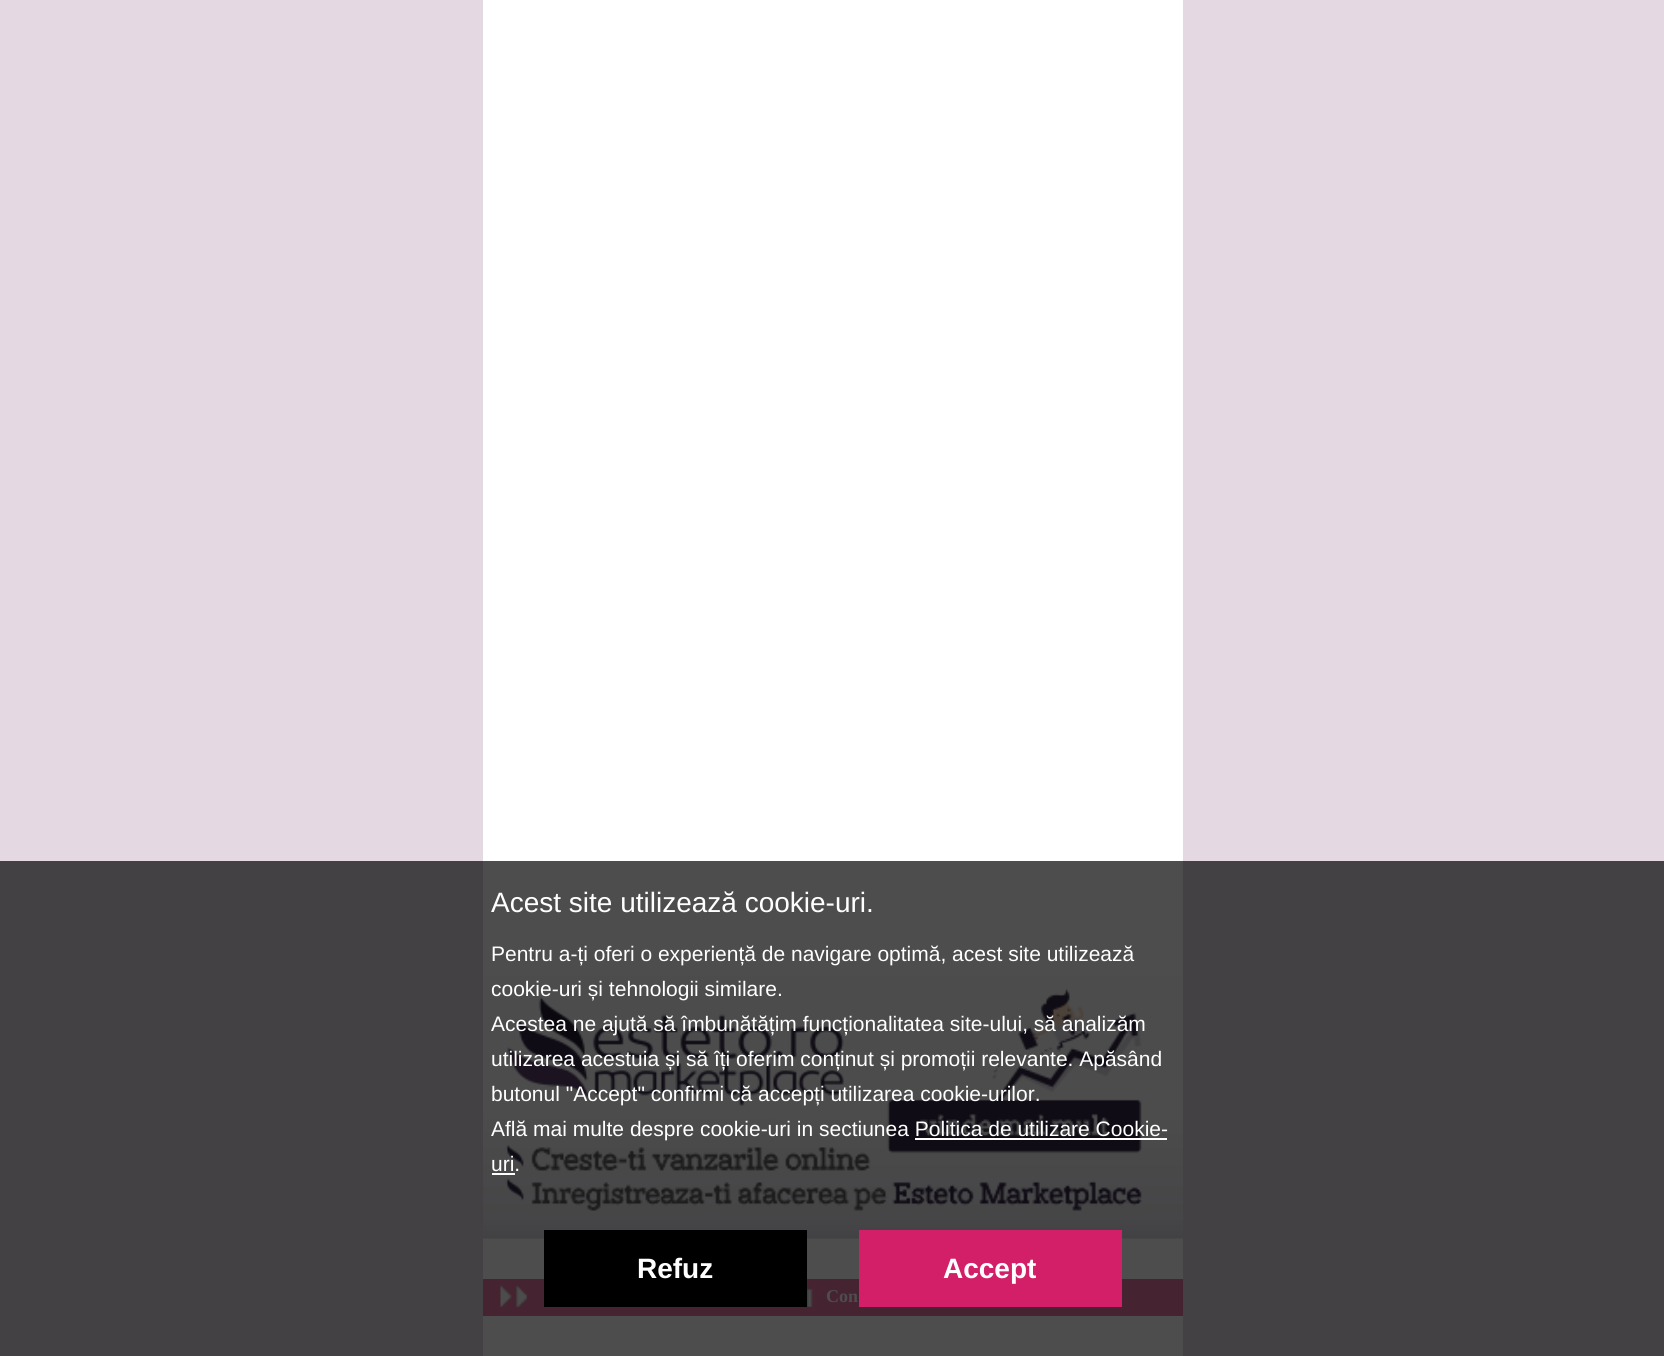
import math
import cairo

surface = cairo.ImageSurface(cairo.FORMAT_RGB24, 1664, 1356)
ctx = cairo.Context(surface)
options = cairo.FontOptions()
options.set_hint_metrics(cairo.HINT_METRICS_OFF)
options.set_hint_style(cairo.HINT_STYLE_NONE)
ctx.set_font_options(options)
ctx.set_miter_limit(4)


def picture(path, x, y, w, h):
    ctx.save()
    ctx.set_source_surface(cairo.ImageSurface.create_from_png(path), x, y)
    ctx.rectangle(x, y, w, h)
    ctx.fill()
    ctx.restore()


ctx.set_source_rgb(0.894, 0.847, 0.886)
ctx.paint()
ctx.set_source_rgb(0.267, 0.255, 0.267)
ctx.rectangle(0, 861, 1664, 495)
ctx.fill()
ctx.set_source_rgb(0.302, 0.302, 0.302)
ctx.rectangle(483, 861, 700, 418)
ctx.fill()
ctx.select_font_face("Liberation Sans")
ctx.set_font_size(28)
ctx.set_source_rgb(1, 1, 1)
ctx.move_to(491, 912)
ctx.show_text("Acest site utilizează cookie-uri.")
ctx.set_font_size(21)
ctx.move_to(491, 961)
ctx.show_text("Pentru a-ți oferi o experiență de navigare optimă, acest site utilizează")
picture("img1.png", 483, 976, 700, 263)
ctx.move_to(491, 996)
ctx.show_text("cookie-uri și tehnologii similare.")
ctx.move_to(491, 1031)
ctx.show_text("Acestea ne ajută să îmbunătățim funcționalitatea site-ului, să analizăm")
ctx.move_to(491, 1066)
ctx.show_text("utilizarea acestuia și să îți oferim conținut și promoții relevante. Apăsând")
ctx.move_to(491, 1101)
ctx.show_text("butonul \"Accept\" confirmi că accepți utilizarea cookie-urilor.")
ctx.move_to(491, 1136)
ctx.show_text("Află mai multe despre cookie-uri in sectiunea Politica de utilizare Cookie-")
ctx.move_to(491, 1171)
ctx.show_text("uri.")
ctx.rectangle(915, 1138, 252, 2)
ctx.fill()
ctx.rectangle(492, 1173, 23, 2)
ctx.fill()
ctx.set_source_rgb(0.275, 0.137, 0.192)
ctx.rectangle(483, 1279, 700, 37)
ctx.fill()
ctx.set_source_rgb(0, 0, 0)
ctx.rectangle(544, 1230, 263, 77)
ctx.fill()
ctx.select_font_face("Liberation Sans", cairo.FONT_SLANT_NORMAL, cairo.FONT_WEIGHT_BOLD)
ctx.set_font_size(28)
ctx.set_source_rgb(1, 1, 1)
ctx.move_to(637, 1278)
ctx.show_text("Refuz")
ctx.set_source_rgb(0.824, 0.122, 0.408)
ctx.rectangle(859, 1230, 263, 77)
ctx.fill()
ctx.set_source_rgb(1, 1, 1)
ctx.move_to(943, 1278)
ctx.show_text("Accept")
ctx.rectangle(483, 0, 700, 861)
ctx.fill()
picture("img2.png", 500, 1285, 27, 22)
picture("img3.png", 807, 1288, 6, 19)
ctx.select_font_face("Liberation Serif", cairo.FONT_SLANT_NORMAL, cairo.FONT_WEIGHT_BOLD)
ctx.set_font_size(18)
ctx.set_source_rgb(0.302, 0.302, 0.302)
ctx.move_to(826, 1302)
ctx.show_text("Con")
ctx.rectangle(483, 1316, 700, 40)
ctx.fill()
surface.write_to_png("page.png")
